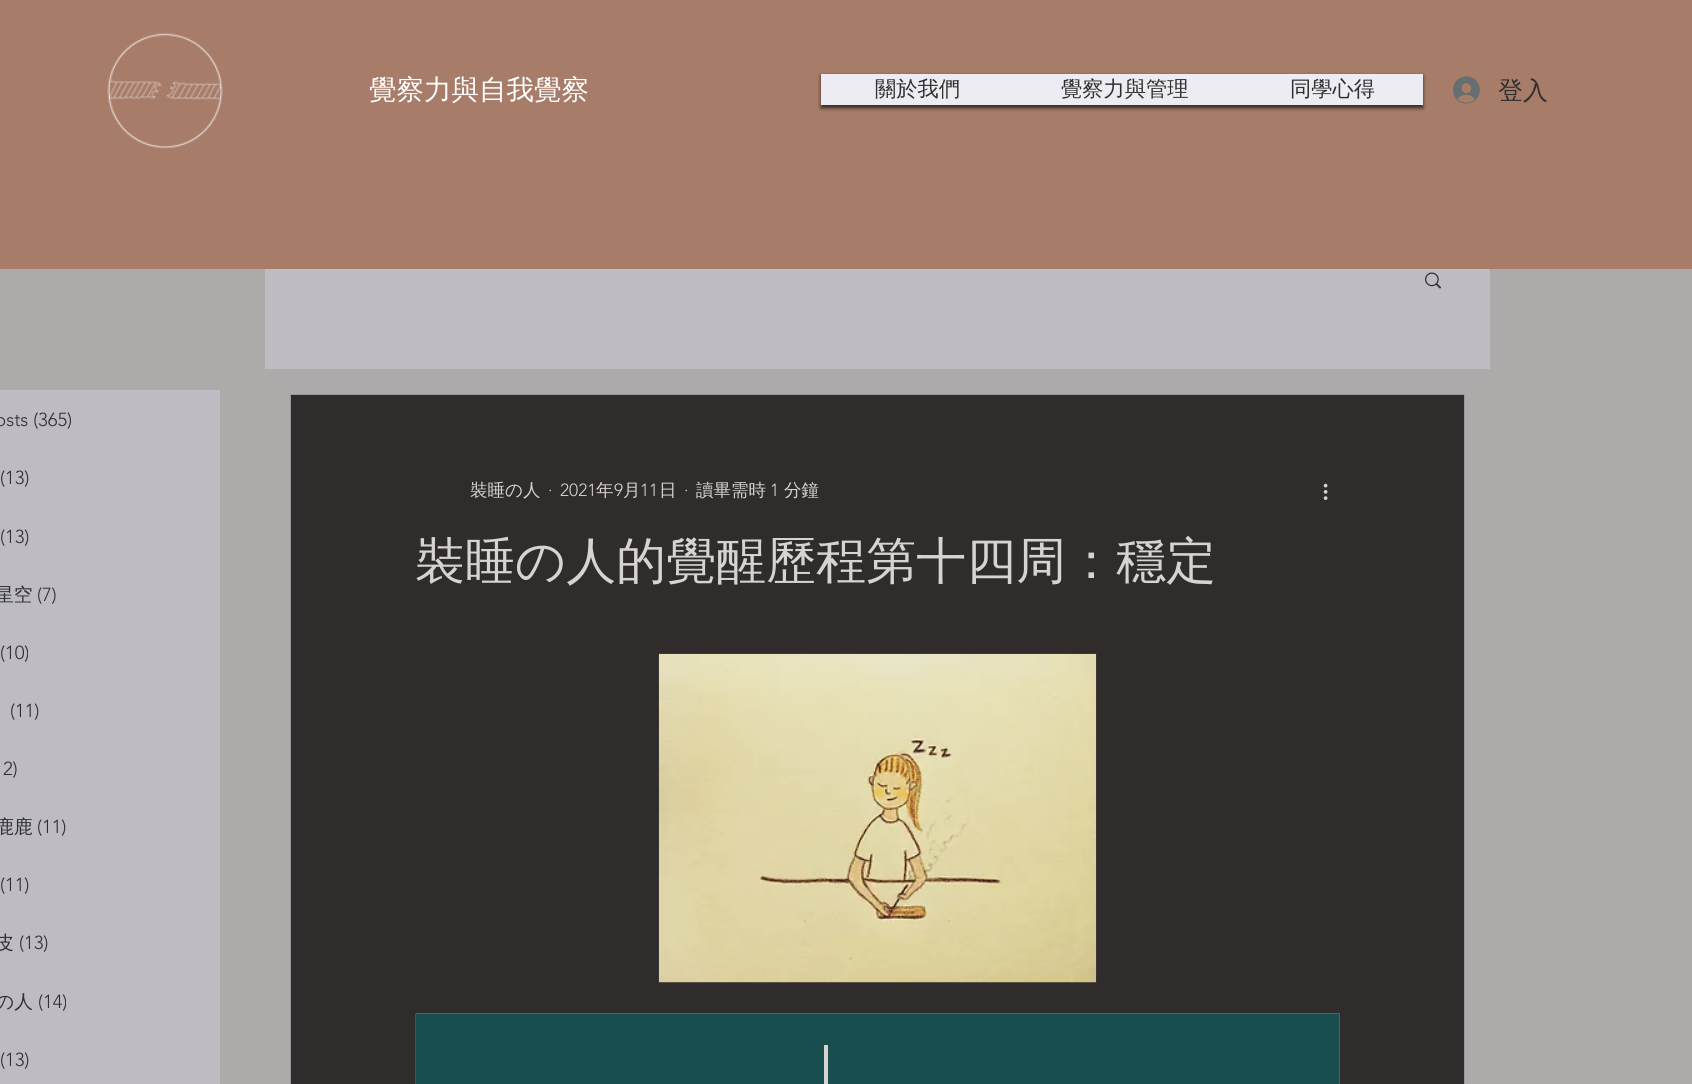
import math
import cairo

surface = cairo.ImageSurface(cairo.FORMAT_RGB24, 1692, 1084)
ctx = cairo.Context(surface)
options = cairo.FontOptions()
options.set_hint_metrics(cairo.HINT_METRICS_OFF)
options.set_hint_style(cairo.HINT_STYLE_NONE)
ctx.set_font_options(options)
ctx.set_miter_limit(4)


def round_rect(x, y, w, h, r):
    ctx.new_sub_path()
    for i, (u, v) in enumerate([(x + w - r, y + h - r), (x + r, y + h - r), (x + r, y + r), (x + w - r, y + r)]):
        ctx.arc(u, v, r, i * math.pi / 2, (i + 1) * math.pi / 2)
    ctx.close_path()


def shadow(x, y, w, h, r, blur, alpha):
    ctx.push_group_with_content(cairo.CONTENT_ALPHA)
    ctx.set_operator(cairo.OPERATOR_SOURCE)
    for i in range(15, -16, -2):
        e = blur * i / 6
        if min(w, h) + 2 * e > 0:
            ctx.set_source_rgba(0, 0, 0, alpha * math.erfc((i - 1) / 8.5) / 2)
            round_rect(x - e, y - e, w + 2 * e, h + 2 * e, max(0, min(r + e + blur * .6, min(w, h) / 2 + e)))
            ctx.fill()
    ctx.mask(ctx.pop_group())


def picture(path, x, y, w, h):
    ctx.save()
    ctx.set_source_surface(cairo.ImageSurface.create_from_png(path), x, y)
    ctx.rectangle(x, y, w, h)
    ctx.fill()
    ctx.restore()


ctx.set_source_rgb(0.682, 0.667, 0.663)
ctx.paint()
ctx.set_source_rgb(0.655, 0.486, 0.412)
ctx.rectangle(0, 0, 1692, 269)
ctx.fill()
picture("img1.png", 107, 33, 116, 116)
ctx.select_font_face("WenQuanYi Zen Hei Medium")
ctx.set_font_size(27.5)
ctx.set_source_rgb(1, 1, 1)
ctx.move_to(369, 99)
ctx.show_text("覺察力與自我覺察")
ctx.set_source_rgb(0, 0, 0)
shadow(821, 76, 602, 32, 0, 2, 0.7)
ctx.set_source_rgb(0.929, 0.922, 0.949)
ctx.rectangle(821, 74, 602, 31)
ctx.fill()
ctx.set_font_size(21.25)
ctx.set_source_rgb(0.184, 0.184, 0.188)
ctx.move_to(875, 96)
ctx.show_text("關於我們")
ctx.move_to(1061, 96)
ctx.show_text("覺察力與管理")
ctx.move_to(1290, 96)
ctx.show_text("同學心得")
picture("img2.png", 1453, 76, 27, 28)
ctx.set_font_size(25)
ctx.move_to(1498, 99)
ctx.show_text("登入")
ctx.set_source_rgb(0.745, 0.737, 0.761)
ctx.rectangle(0, 390, 220, 694)
ctx.fill()
ctx.select_font_face("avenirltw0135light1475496 Light")
ctx.set_font_size(18.75)
ctx.set_source_rgb(0.184, 0.184, 0.188)
ctx.move_to(-5, 426)
ctx.show_text("osts (365)")
ctx.move_to(0, 484)
ctx.show_text("(13)")
ctx.move_to(0, 543)
ctx.show_text("(13)")
ctx.select_font_face("WenQuanYi Zen Hei Medium")
ctx.move_to(-5, 601)
ctx.show_text("星空")
ctx.select_font_face("avenirltw0135light1475496 Light")
ctx.move_to(37, 601)
ctx.show_text("(7)")
ctx.move_to(0, 659)
ctx.show_text("(10)")
ctx.move_to(10, 717)
ctx.show_text("(11)")
ctx.move_to(3, 775)
ctx.show_text("2)")
ctx.select_font_face("WenQuanYi Zen Hei Medium")
ctx.move_to(-5, 833)
ctx.show_text("鹿鹿")
ctx.select_font_face("avenirltw0135light1475496 Light")
ctx.move_to(37, 833)
ctx.show_text("(11)")
ctx.move_to(0, 891)
ctx.show_text("(11)")
ctx.select_font_face("WenQuanYi Zen Hei Medium")
ctx.move_to(-5, 949)
ctx.show_text("皮")
ctx.select_font_face("avenirltw0135light1475496 Light")
ctx.move_to(19, 949)
ctx.show_text("(13)")
ctx.select_font_face("WenQuanYi Zen Hei Medium")
ctx.move_to(-5, 1008)
ctx.show_text("の人")
ctx.select_font_face("avenirltw0135light1475496 Light")
ctx.move_to(38, 1008)
ctx.show_text("(14)")
ctx.move_to(0, 1066)
ctx.show_text("(13)")
ctx.set_source_rgb(0.745, 0.737, 0.761)
ctx.rectangle(265, 269, 1225, 100)
ctx.fill()
picture("img3.png", 1425, 272, 17, 17)
ctx.set_source_rgb(0.184, 0.173, 0.169)
ctx.rectangle(290.5, 394.5, 1174, 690)
ctx.fill_preserve()
ctx.set_source_rgb(0.604, 0.596, 0.612)
ctx.set_line_width(1)
ctx.stroke()
ctx.select_font_face("WenQuanYi Zen Hei Medium")
ctx.set_font_size(17.5)
ctx.set_source_rgb(0.843, 0.827, 0.824)
ctx.move_to(470, 496)
ctx.show_text("裝睡の人")
ctx.select_font_face("avenirltw0135light1475496 Light")
ctx.move_to(548, 496)
ctx.show_text("·")
ctx.move_to(560, 496)
ctx.show_text("2021")
ctx.select_font_face("WenQuanYi Zen Hei Medium")
ctx.move_to(596, 496)
ctx.show_text("年")
ctx.select_font_face("avenirltw0135light1475496 Light")
ctx.move_to(614, 496)
ctx.show_text("9")
ctx.select_font_face("WenQuanYi Zen Hei Medium")
ctx.move_to(623, 496)
ctx.show_text("月")
ctx.select_font_face("avenirltw0135light1475496 Light")
ctx.move_to(640, 496)
ctx.show_text("11")
ctx.select_font_face("WenQuanYi Zen Hei Medium")
ctx.move_to(659, 496)
ctx.show_text("日")
ctx.select_font_face("avenirltw0135light1475496 Light")
ctx.move_to(684, 496)
ctx.show_text("·")
ctx.select_font_face("WenQuanYi Zen Hei Medium")
ctx.move_to(696, 496)
ctx.show_text("讀畢需時")
ctx.select_font_face("avenirltw0135light1475496 Light")
ctx.move_to(770, 496)
ctx.show_text("1")
ctx.select_font_face("WenQuanYi Zen Hei Medium")
ctx.move_to(784, 496)
ctx.show_text("分鐘")
picture("img4.png", 1323, 483, 5, 17)
ctx.set_font_size(50)
ctx.move_to(415, 578)
ctx.show_text("裝睡の人的覺醒歷程第十四周：穩定")
picture("img5.png", 658, 653, 439, 330)
ctx.set_source_rgb(0.098, 0.306, 0.31)
ctx.rectangle(416, 1014, 923, 70)
ctx.fill()
ctx.set_source_rgb(0.247, 0.412, 0.412)
ctx.rectangle(416, 1013, 924, 1)
ctx.fill()
ctx.set_source_rgb(0.318, 0.302, 0.298)
ctx.rectangle(415, 1014, 1, 70)
ctx.fill()
ctx.set_source_rgb(0.843, 0.827, 0.824)
ctx.rectangle(824, 1045, 4, 39)
ctx.fill()
ctx.set_source_rgb(0.247, 0.412, 0.412)
ctx.rectangle(1339, 1014, 1, 70)
ctx.fill()
surface.write_to_png("page.png")
